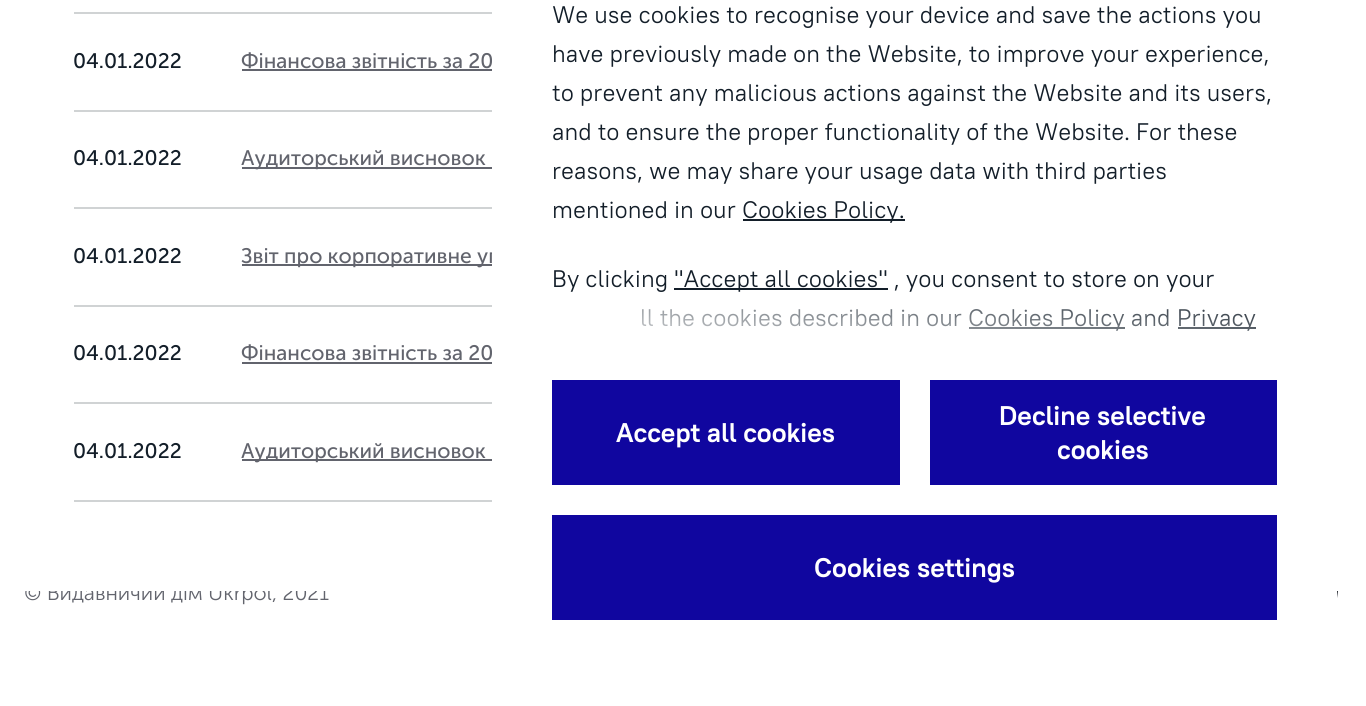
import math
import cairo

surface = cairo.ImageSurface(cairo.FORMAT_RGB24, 1366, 706)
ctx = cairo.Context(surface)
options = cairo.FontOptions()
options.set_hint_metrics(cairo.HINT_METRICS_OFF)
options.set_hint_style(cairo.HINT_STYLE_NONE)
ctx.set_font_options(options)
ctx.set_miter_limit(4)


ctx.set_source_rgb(1, 1, 1)
ctx.paint()
ctx.select_font_face("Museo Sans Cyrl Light")
ctx.set_font_size(21)
ctx.set_source_rgb(0.384, 0.392, 0.427)
ctx.move_to(24, 600)
ctx.show_text("© Видавничий дім Ukrpol, 2021")
ctx.set_source_rgb(0.18, 0.192, 0.224)
ctx.new_path()
ctx.move_to(1342, 565)
ctx.line_to(1336, 567)
ctx.line_to(1331, 597)
ctx.line_to(1315, 604)
ctx.line_to(1321, 622)
ctx.line_to(1334, 618)
ctx.close_path()
ctx.fill()
ctx.set_source_rgb(1, 1, 1)
ctx.rectangle(25, 565, 1317, 26)
ctx.fill()
ctx.set_source_rgb(0.816, 0.827, 0.831)
ctx.rectangle(74, 12, 418, 2)
ctx.fill()
ctx.rectangle(74, 110, 418, 2)
ctx.fill()
ctx.select_font_face("Museo Sans Cyrl")
ctx.set_source_rgb(0.075, 0.118, 0.161)
ctx.move_to(73, 68)
ctx.show_text("04.01.2022")
ctx.set_source_rgb(0.384, 0.392, 0.427)
ctx.move_to(241, 68)
ctx.show_text("Фінансова звітність за 20")
ctx.rectangle(242, 69, 250, 2)
ctx.fill()
ctx.set_source_rgb(0.816, 0.827, 0.831)
ctx.rectangle(74, 207, 418, 2)
ctx.fill()
ctx.set_source_rgb(0.075, 0.118, 0.161)
ctx.move_to(73, 165)
ctx.show_text("04.01.2022")
ctx.set_source_rgb(0.384, 0.392, 0.427)
ctx.rectangle(242, 167, 250, 2)
ctx.fill()
ctx.move_to(241, 165)
ctx.show_text("Аудиторський висновок")
ctx.set_source_rgb(0.816, 0.827, 0.831)
ctx.rectangle(74, 305, 418, 2)
ctx.fill()
ctx.set_source_rgb(0.075, 0.118, 0.161)
ctx.move_to(73, 263)
ctx.show_text("04.01.2022")
ctx.set_source_rgb(0.384, 0.392, 0.427)
ctx.rectangle(242, 264, 250, 2)
ctx.fill()
ctx.move_to(241, 263)
ctx.show_text("Звіт про корпоративне уп")
ctx.set_source_rgb(0.816, 0.827, 0.831)
ctx.rectangle(74, 402, 418, 2)
ctx.fill()
ctx.set_source_rgb(0.075, 0.118, 0.161)
ctx.move_to(73, 360)
ctx.show_text("04.01.2022")
ctx.set_source_rgb(0.384, 0.392, 0.427)
ctx.move_to(241, 360)
ctx.show_text("Фінансова звітність за 20")
ctx.rectangle(242, 362, 250, 2)
ctx.fill()
ctx.set_source_rgb(0.816, 0.827, 0.831)
ctx.rectangle(74, 500, 418, 2)
ctx.fill()
ctx.set_source_rgb(0.075, 0.118, 0.161)
ctx.move_to(73, 458)
ctx.show_text("04.01.2022")
ctx.set_source_rgb(0.384, 0.392, 0.427)
ctx.rectangle(242, 459, 250, 2)
ctx.fill()
ctx.move_to(241, 458)
ctx.show_text("Аудиторський висновок")
ctx.set_source_rgb(1, 1, 1)
ctx.rectangle(492, 56, 845, 566)
ctx.fill()
ctx.select_font_face("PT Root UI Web")
ctx.set_font_size(24)
ctx.set_source_rgb(0.075, 0.118, 0.161)
ctx.move_to(552, 23)
ctx.show_text("We use cookies to recognise your device and save the actions you")
ctx.move_to(552, 62)
ctx.show_text("have previously made on the Website, to improve your experience,")
ctx.move_to(552, 101)
ctx.show_text("to prevent any malicious actions against the Website and its users,")
ctx.move_to(552, 140)
ctx.show_text("and to ensure the proper functionality of the Website. For these")
ctx.move_to(552, 179)
ctx.show_text("reasons, we may share your usage data with third parties")
ctx.move_to(552, 218)
ctx.show_text("mentioned in our")
ctx.rectangle(743, 219, 162, 2)
ctx.fill()
ctx.move_to(742, 218)
ctx.show_text("Cookies Policy.")
ctx.move_to(552, 287)
ctx.show_text("By clicking")
ctx.rectangle(674, 288, 214, 2)
ctx.fill()
ctx.move_to(674, 287)
ctx.show_text("\"Accept all cookies\" , you consent to store on your")
ctx.move_to(640, 326)
ctx.show_text("ll the cookies described in our")
ctx.rectangle(969, 327, 156, 2)
ctx.fill()
ctx.move_to(968, 326)
ctx.show_text("Cookies Policy and")
ctx.rectangle(1178, 327, 78, 2)
ctx.fill()
ctx.move_to(1177, 326)
ctx.show_text("Privacy")
gradient = cairo.LinearGradient(923, 255, 907, 415)
gradient.add_color_stop_rgba(0, 1, 1, 1, 0)
gradient.add_color_stop_rgba(0.87, 1, 1, 1, 1)
ctx.set_source(gradient)
ctx.rectangle(642, 309, 614, 22)
ctx.fill()
ctx.set_source_rgb(0.063, 0.024, 0.624)
ctx.rectangle(552, 380, 348, 105)
ctx.fill()
ctx.select_font_face("PT Root UI Web", cairo.FONT_SLANT_NORMAL, cairo.FONT_WEIGHT_BOLD)
ctx.set_font_size(27)
ctx.set_source_rgb(1, 1, 1)
ctx.move_to(616, 442)
ctx.show_text("Accept all cookies")
ctx.set_source_rgb(0.063, 0.024, 0.624)
ctx.rectangle(930, 380, 347, 105)
ctx.fill()
ctx.set_source_rgb(1, 1, 1)
ctx.move_to(999, 425)
ctx.show_text("Decline selective")
ctx.move_to(1057, 459)
ctx.show_text("cookies")
ctx.set_source_rgb(0.063, 0.024, 0.624)
ctx.rectangle(552, 515, 725, 105)
ctx.fill()
ctx.set_source_rgb(1, 1, 1)
ctx.move_to(814, 577)
ctx.show_text("Cookies settings")
surface.write_to_png("page.png")
